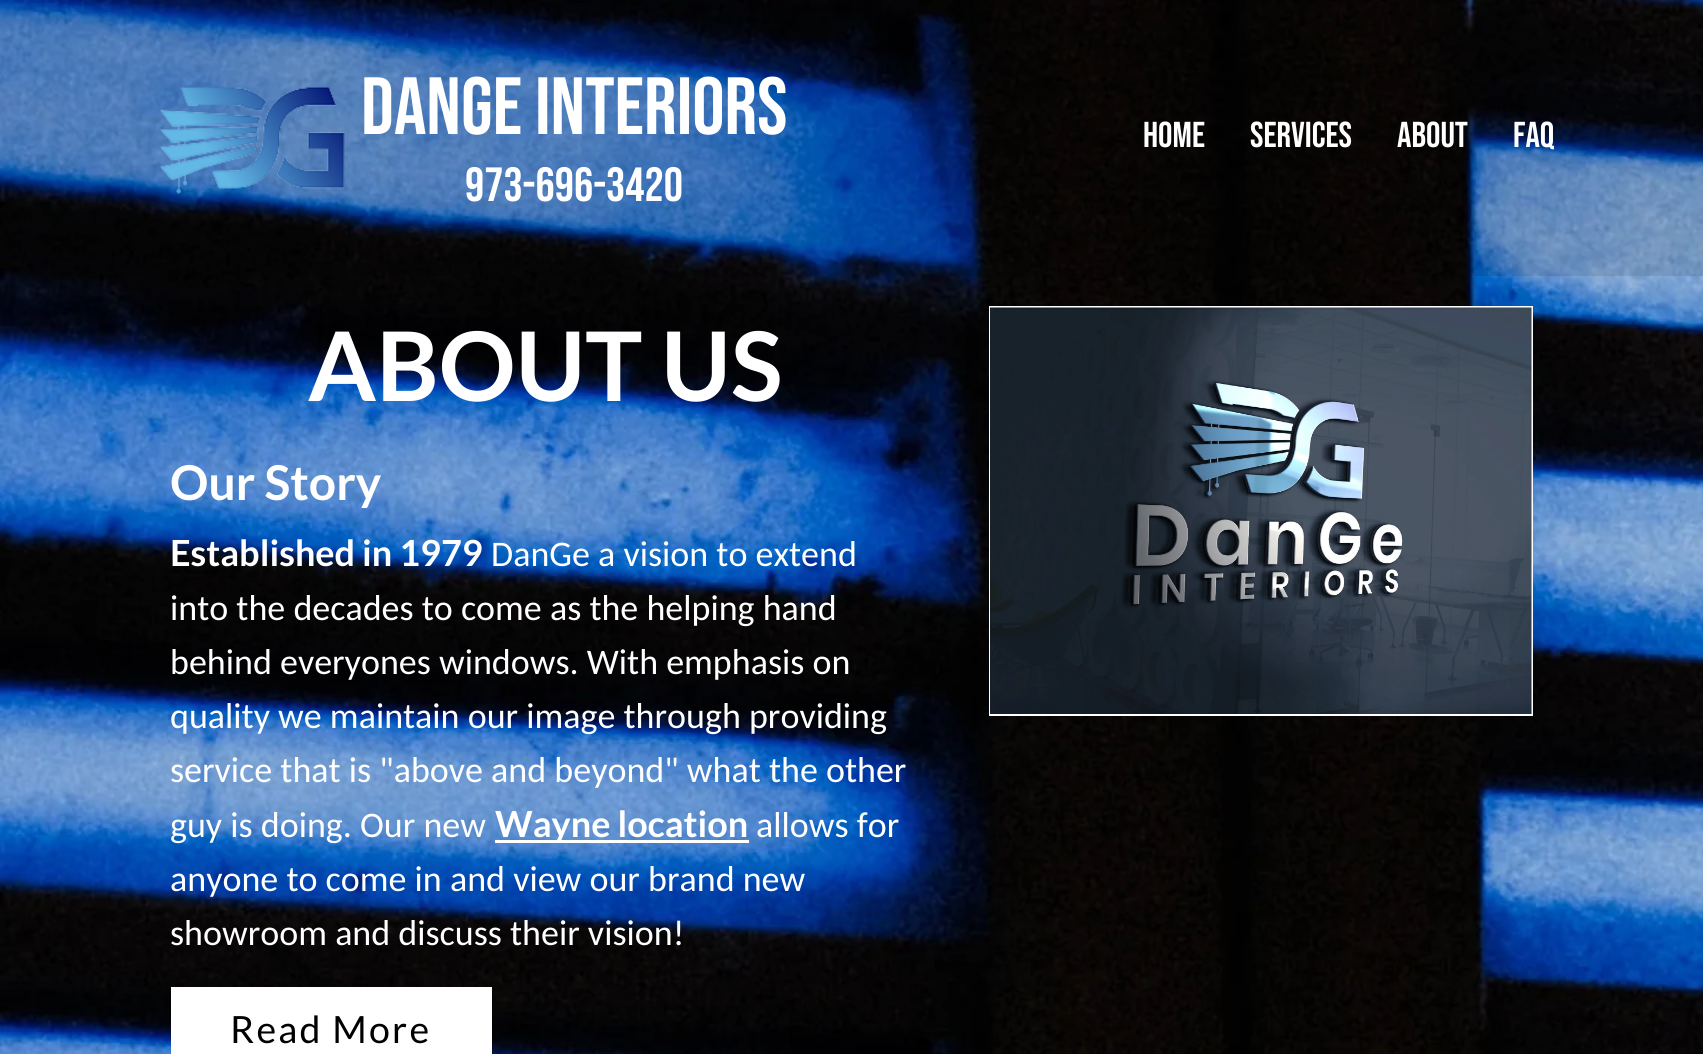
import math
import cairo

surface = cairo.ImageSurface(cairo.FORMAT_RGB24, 1703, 1054)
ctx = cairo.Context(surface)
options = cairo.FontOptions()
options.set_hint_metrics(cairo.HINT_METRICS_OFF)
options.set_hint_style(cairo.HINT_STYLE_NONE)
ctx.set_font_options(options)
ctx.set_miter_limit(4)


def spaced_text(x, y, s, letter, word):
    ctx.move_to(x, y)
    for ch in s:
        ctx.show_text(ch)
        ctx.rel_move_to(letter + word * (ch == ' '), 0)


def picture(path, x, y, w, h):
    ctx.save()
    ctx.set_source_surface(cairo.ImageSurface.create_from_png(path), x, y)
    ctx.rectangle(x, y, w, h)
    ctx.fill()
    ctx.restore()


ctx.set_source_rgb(1, 1, 1)
ctx.paint()
picture("img2.png", 0, 0, 1703, 1054)
ctx.set_source_rgba(0, 0, 0, 0.1)
ctx.rectangle(0, 0, 1703, 276)
ctx.fill()
picture("img1.png", 159, 87, 186, 107)
ctx.select_font_face("Bebas Neue")
ctx.set_font_size(81)
ctx.set_source_rgb(1, 1, 1)
ctx.move_to(361, 134)
ctx.show_text("Dange Interiors")
ctx.set_font_size(48)
ctx.move_to(465, 201)
ctx.show_text("973-696-3420")
ctx.set_font_size(36)
ctx.move_to(1143, 147)
ctx.show_text("Home")
ctx.move_to(1250, 147)
ctx.show_text("Services")
ctx.move_to(1397, 147)
ctx.show_text("About")
ctx.move_to(1513, 147)
ctx.show_text("FAQ")
ctx.select_font_face("Lato", cairo.FONT_SLANT_NORMAL, cairo.FONT_WEIGHT_BOLD)
ctx.set_font_size(96)
ctx.move_to(308, 401)
ctx.show_text("ABOUT US")
ctx.set_font_size(48)
ctx.move_to(170, 500)
ctx.show_text("Our Story")
ctx.set_font_size(36)
ctx.move_to(170, 566)
ctx.show_text("Established in 1979")
ctx.select_font_face("Carlito")
ctx.move_to(491, 566)
ctx.show_text("DanGe a vision to extend")
ctx.move_to(170, 620)
ctx.show_text("into the decades to come as the helping hand")
ctx.move_to(170, 674)
ctx.show_text("behind everyones windows. With emphasis on")
ctx.move_to(170, 728)
ctx.show_text("quality we maintain our image through providing")
ctx.move_to(170, 782)
ctx.show_text("service that is \"above and beyond\" what the other")
ctx.move_to(170, 837)
ctx.show_text("guy is doing. Our new")
ctx.rectangle(495, 840, 254, 3)
ctx.fill()
ctx.select_font_face("Lato", cairo.FONT_SLANT_NORMAL, cairo.FONT_WEIGHT_BOLD)
ctx.move_to(495, 837)
ctx.show_text("Wayne location")
ctx.select_font_face("Carlito")
ctx.move_to(756, 837)
ctx.show_text("allows for")
ctx.move_to(170, 891)
ctx.show_text("anyone to come in and view our brand new")
ctx.move_to(170, 945)
ctx.show_text("showroom and discuss their vision!")
ctx.rectangle(171, 987, 321, 67)
ctx.fill()
ctx.select_font_face("Lato")
ctx.set_font_size(37.5)
ctx.set_source_rgb(0, 0, 0)
spaced_text(230, 1043, "Read More", 2.25, 0)
ctx.rectangle(990, 307, 542, 408)
ctx.set_source_rgb(1, 1, 1)
ctx.stroke()
picture("img3.png", 990, 307, 542, 407)
surface.write_to_png("page.png")
